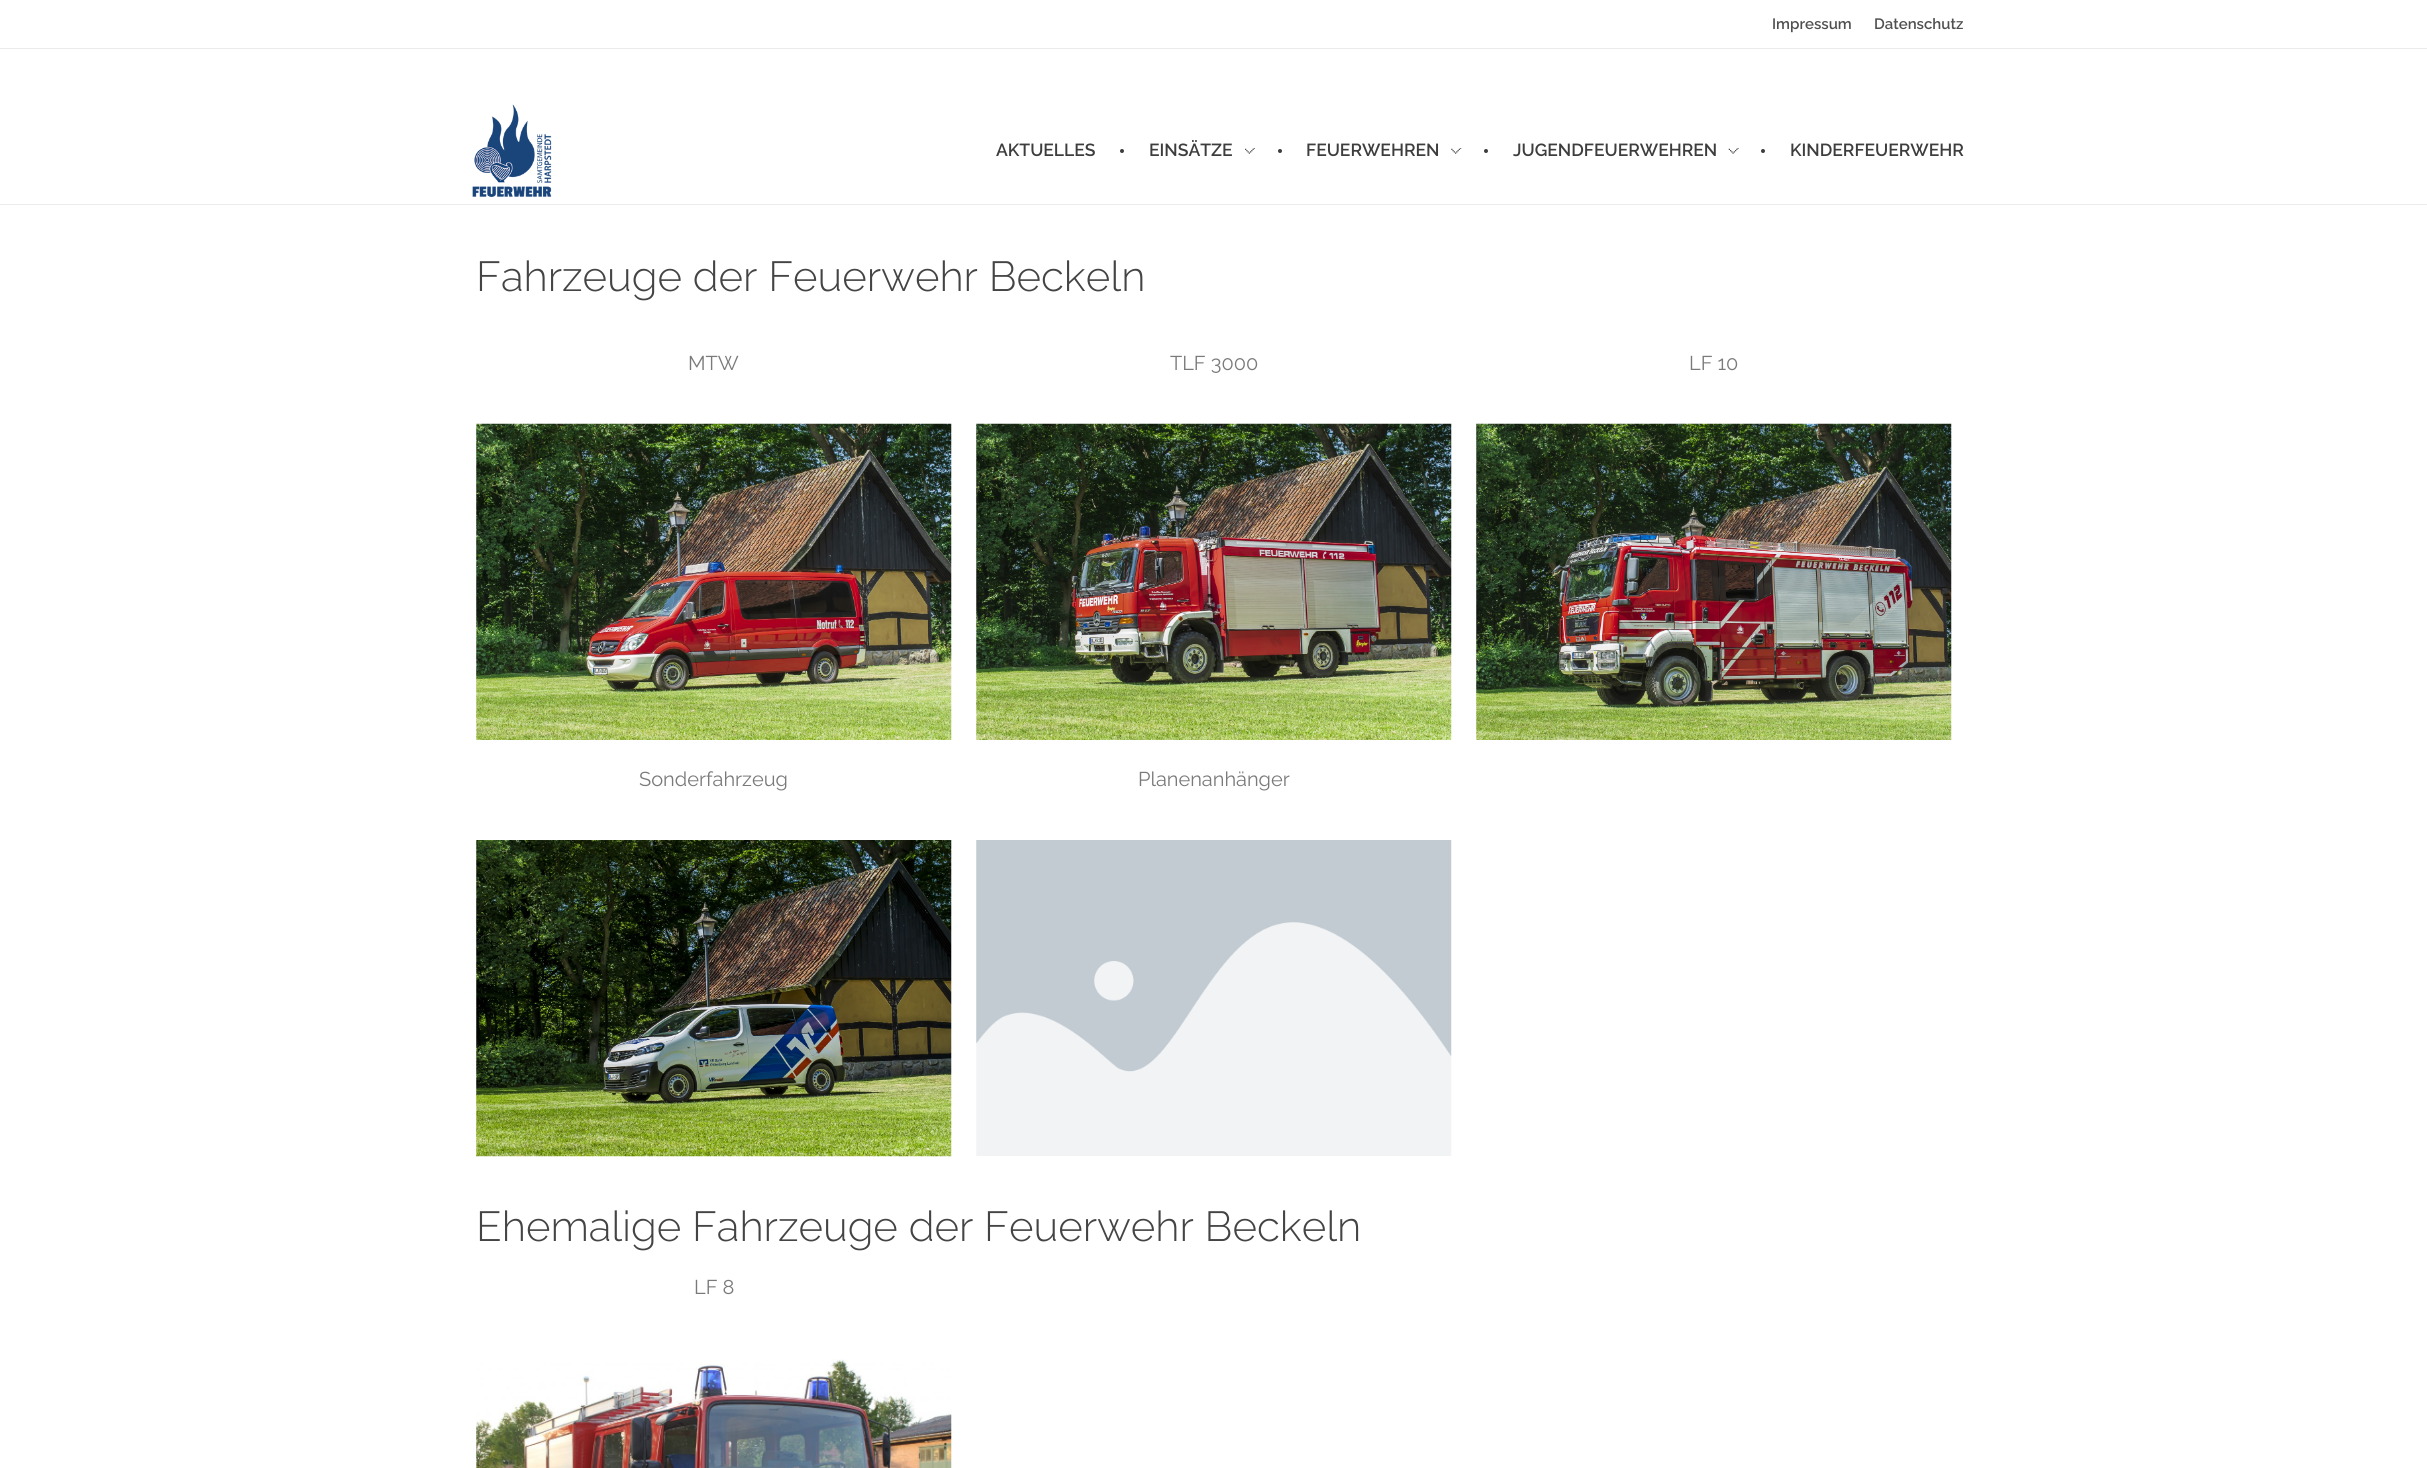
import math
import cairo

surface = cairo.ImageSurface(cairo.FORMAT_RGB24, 2427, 1468)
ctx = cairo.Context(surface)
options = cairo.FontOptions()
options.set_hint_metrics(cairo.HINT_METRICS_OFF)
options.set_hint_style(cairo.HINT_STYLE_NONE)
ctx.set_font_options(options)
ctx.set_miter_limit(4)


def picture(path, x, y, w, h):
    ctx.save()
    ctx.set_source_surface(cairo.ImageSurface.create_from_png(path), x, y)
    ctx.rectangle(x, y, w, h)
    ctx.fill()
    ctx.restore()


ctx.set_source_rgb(1, 1, 1)
ctx.paint()
ctx.set_source_rgb(0.918, 0.918, 0.918)
ctx.rectangle(0, 48, 2427, 1)
ctx.fill()
ctx.select_font_face("Raleway SemiBold")
ctx.set_font_size(15)
ctx.set_source_rgb(0.314, 0.314, 0.314)
ctx.move_to(1772, 29)
ctx.show_text("Impressum")
ctx.move_to(1874, 29)
ctx.show_text("Datenschutz")
ctx.set_source_rgb(0.918, 0.918, 0.918)
ctx.rectangle(0, 204, 2427, 1)
ctx.fill()
picture("img1.png", 472, 104, 80, 93)
ctx.set_font_size(17.5)
ctx.set_source_rgb(0.239, 0.239, 0.239)
ctx.move_to(996, 156)
ctx.show_text("AKTUELLES")
ctx.new_path()
ctx.arc(1122, 151, 2, 0, 2 * math.pi)
ctx.fill()
ctx.move_to(1149, 156)
ctx.show_text("EINSÄTZE")
picture("img2.png", 1245, 148, 10, 6)
ctx.arc(1280, 151, 2, 0, 2 * math.pi)
ctx.fill()
ctx.move_to(1306, 156)
ctx.show_text("FEUERWEHREN")
picture("img3.png", 1451, 148, 11, 6)
ctx.arc(1486, 151, 2, 0, 2 * math.pi)
ctx.fill()
ctx.move_to(1513, 156)
ctx.show_text("JUGENDFEUERWEHREN")
picture("img4.png", 1728, 148, 11, 6)
ctx.arc(1763, 151, 2, 0, 2 * math.pi)
ctx.fill()
ctx.move_to(1790, 156)
ctx.show_text("KINDERFEUERWEHR")
ctx.select_font_face("Raleway Light")
ctx.set_font_size(42)
ctx.set_source_rgb(0.267, 0.267, 0.267)
ctx.move_to(476, 291)
ctx.show_text("Fahrzeuge der Feuerwehr Beckeln")
ctx.select_font_face("Raleway")
ctx.set_font_size(20)
ctx.set_source_rgb(0.478, 0.478, 0.478)
ctx.move_to(688, 370)
ctx.show_text("MTW")
picture("img5.png", 476, 423, 476, 317)
ctx.move_to(1170, 370)
ctx.show_text("TLF 3000")
picture("img6.png", 976, 423, 476, 317)
ctx.move_to(1689, 370)
ctx.show_text("LF 10")
picture("img7.png", 1476, 423, 476, 317)
ctx.move_to(639, 786)
ctx.show_text("Sonderfahrzeug")
picture("img8.png", 476, 840, 476, 317)
ctx.move_to(1138, 786)
ctx.show_text("Planenanhänger")
picture("img9.png", 976, 840, 476, 316)
ctx.select_font_face("Raleway Light")
ctx.set_font_size(42)
ctx.set_source_rgb(0.267, 0.267, 0.267)
ctx.move_to(476, 1241)
ctx.show_text("Ehemalige Fahrzeuge der Feuerwehr Beckeln")
ctx.select_font_face("Raleway")
ctx.set_font_size(20)
ctx.set_source_rgb(0.478, 0.478, 0.478)
ctx.move_to(694, 1294)
ctx.show_text("LF 8")
picture("img10.png", 476, 1358, 476, 110)
surface.write_to_png("page.png")
